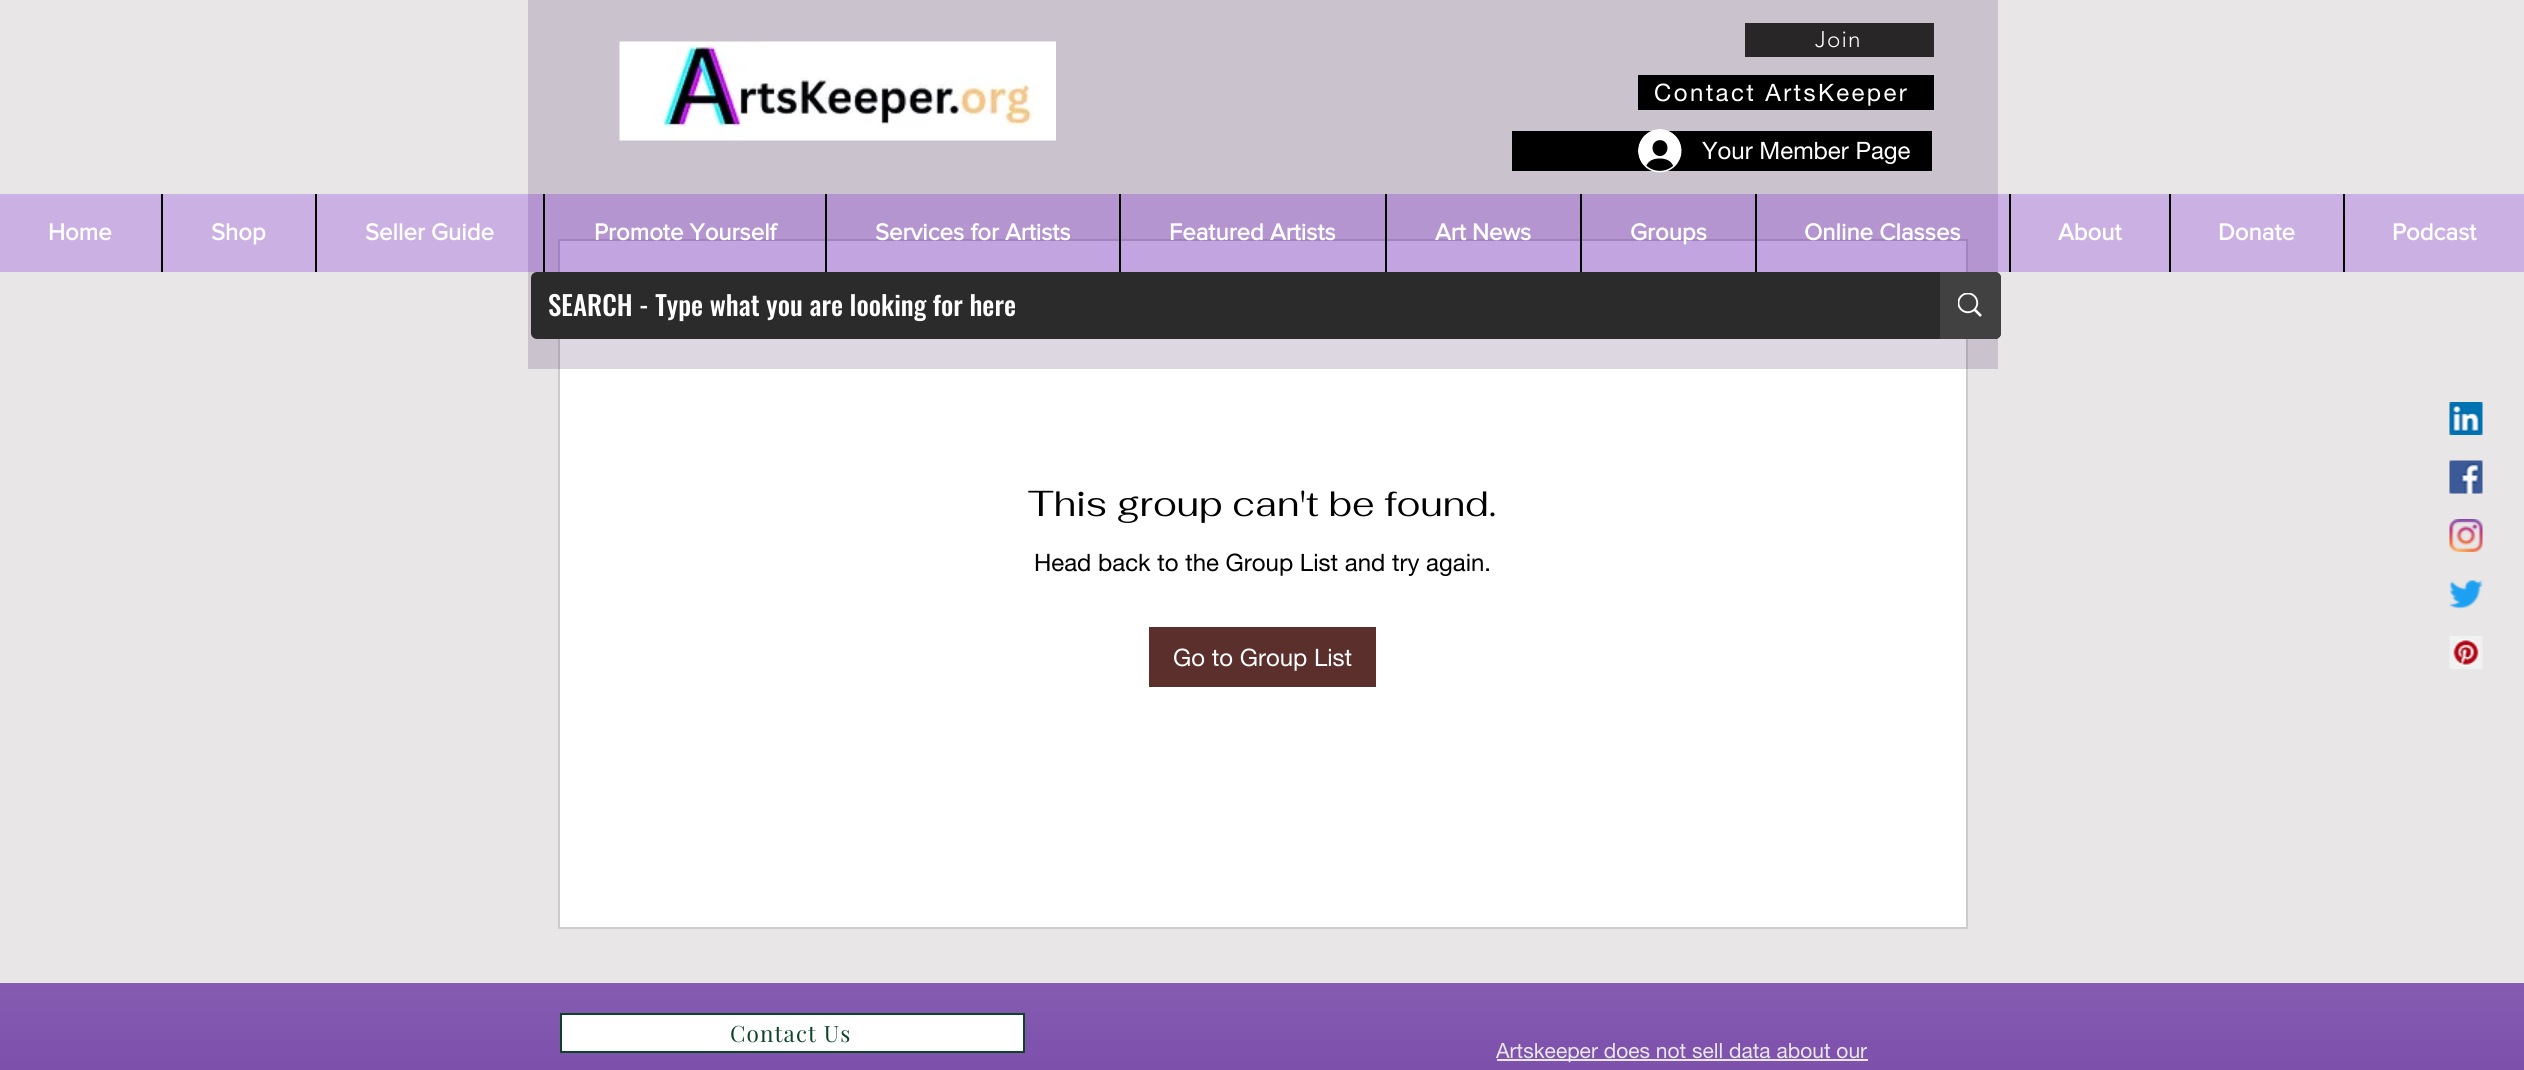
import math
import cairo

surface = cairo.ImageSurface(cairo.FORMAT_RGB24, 2524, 1070)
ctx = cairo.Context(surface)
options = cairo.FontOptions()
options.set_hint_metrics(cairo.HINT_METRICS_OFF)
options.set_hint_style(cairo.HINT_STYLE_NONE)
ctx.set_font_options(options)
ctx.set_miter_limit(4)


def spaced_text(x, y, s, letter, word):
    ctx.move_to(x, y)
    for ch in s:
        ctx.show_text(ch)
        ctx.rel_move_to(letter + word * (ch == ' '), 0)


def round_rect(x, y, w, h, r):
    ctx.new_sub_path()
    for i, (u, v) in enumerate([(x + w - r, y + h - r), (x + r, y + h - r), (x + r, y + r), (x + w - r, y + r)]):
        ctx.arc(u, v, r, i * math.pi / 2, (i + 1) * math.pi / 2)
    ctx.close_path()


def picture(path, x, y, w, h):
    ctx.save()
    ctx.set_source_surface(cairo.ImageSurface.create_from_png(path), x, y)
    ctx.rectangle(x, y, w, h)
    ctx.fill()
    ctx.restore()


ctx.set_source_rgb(0.91, 0.902, 0.902)
ctx.paint()
ctx.set_source_rgb(1, 1, 1)
ctx.rectangle(559, 240, 1408, 688)
ctx.fill_preserve()
ctx.set_source_rgb(0.8, 0.8, 0.8)
ctx.stroke()
ctx.set_source_rgba(0.153, 0.024, 0.259, 0.16)
ctx.rectangle(528, 0, 1470, 369)
ctx.fill()
picture("img1.png", 619, 41, 437, 100)
ctx.set_source_rgb(0.157, 0.149, 0.149)
ctx.rectangle(1745, 23, 189, 34)
ctx.fill()
ctx.select_font_face("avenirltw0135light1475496 Light")
ctx.set_font_size(22.5)
ctx.set_source_rgb(1, 1, 1)
spaced_text(1815, 47, "Join", 1.1, 0)
ctx.set_source_rgb(0, 0, 0)
ctx.rectangle(1638, 75, 296, 35)
ctx.fill()
ctx.select_font_face("helvetica neue")
ctx.set_font_size(24)
ctx.set_source_rgb(1, 1, 1)
spaced_text(1654, 101, "Contact ArtsKeeper", 2.4, 0)
ctx.set_source_rgb(0, 0, 0)
ctx.rectangle(1512, 131, 420, 40)
ctx.fill()
picture("img2.png", 1638, 129, 44, 44)
ctx.set_source_rgb(1, 1, 1)
ctx.move_to(1702, 159)
ctx.show_text("Your Member Page")
ctx.set_source_rgba(0.439, 0.027, 0.878, 0.24)
ctx.rectangle(0, 194, 2524, 78)
ctx.fill()
ctx.select_font_face("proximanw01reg", cairo.FONT_SLANT_NORMAL, cairo.FONT_WEIGHT_BOLD)
ctx.set_source_rgb(1, 1, 1)
ctx.move_to(48, 240)
ctx.show_text("Home")
ctx.set_source_rgb(0, 0, 0)
ctx.rectangle(161, 194, 2, 78)
ctx.fill()
ctx.set_source_rgb(1, 1, 1)
ctx.move_to(211, 240)
ctx.show_text("Shop")
ctx.set_source_rgb(0, 0, 0)
ctx.rectangle(315, 194, 2, 78)
ctx.fill()
ctx.set_source_rgb(1, 1, 1)
ctx.move_to(365, 240)
ctx.show_text("Seller Guide")
ctx.set_source_rgb(0, 0, 0)
ctx.rectangle(543, 194, 2, 78)
ctx.fill()
ctx.set_source_rgb(1, 1, 1)
ctx.move_to(594, 240)
ctx.show_text("Promote Yourself")
ctx.set_source_rgb(0, 0, 0)
ctx.rectangle(825, 194, 2, 78)
ctx.fill()
ctx.set_source_rgb(1, 1, 1)
ctx.move_to(875, 240)
ctx.show_text("Services for Artists")
ctx.set_source_rgb(0, 0, 0)
ctx.rectangle(1119, 194, 2, 78)
ctx.fill()
ctx.set_source_rgb(1, 1, 1)
ctx.move_to(1169, 240)
ctx.show_text("Featured Artists")
ctx.set_source_rgb(0, 0, 0)
ctx.rectangle(1385, 194, 2, 78)
ctx.fill()
ctx.set_source_rgb(1, 1, 1)
ctx.move_to(1435, 240)
ctx.show_text("Art News")
ctx.set_source_rgb(0, 0, 0)
ctx.rectangle(1580, 194, 2, 78)
ctx.fill()
ctx.set_source_rgb(1, 1, 1)
ctx.move_to(1630, 240)
ctx.show_text("Groups")
ctx.set_source_rgb(0, 0, 0)
ctx.rectangle(1755, 194, 2, 78)
ctx.fill()
ctx.set_source_rgb(1, 1, 1)
ctx.move_to(1804, 240)
ctx.show_text("Online Classes")
ctx.set_source_rgb(0, 0, 0)
ctx.rectangle(2009, 194, 2, 78)
ctx.fill()
ctx.set_source_rgb(1, 1, 1)
ctx.move_to(2058, 240)
ctx.show_text("About")
ctx.set_source_rgb(0, 0, 0)
ctx.rectangle(2169, 194, 2, 78)
ctx.fill()
ctx.set_source_rgb(1, 1, 1)
ctx.move_to(2218, 240)
ctx.show_text("Donate")
ctx.set_source_rgb(0, 0, 0)
ctx.rectangle(2343, 194, 2, 78)
ctx.fill()
ctx.set_source_rgb(1, 1, 1)
ctx.move_to(2392, 240)
ctx.show_text("Podcast")
ctx.set_source_rgb(0.169, 0.169, 0.169)
round_rect(531, 272, 1470, 67, 6)
ctx.fill()
ctx.select_font_face("Oswald Medium")
ctx.set_font_size(27)
ctx.set_source_rgb(1, 1, 1)
ctx.move_to(548, 316)
ctx.show_text("SEARCH - Type what you are looking for here")
ctx.set_source_rgb(0.255, 0.255, 0.255)
ctx.new_path()
ctx.move_to(1940, 272)
ctx.line_to(1995, 272)
ctx.curve_to(1998.5, 272, 2001, 274.5, 2001, 278)
ctx.line_to(2001, 333)
ctx.curve_to(2001, 336.5, 1998.5, 339, 1995, 339)
ctx.line_to(1940, 339)
ctx.close_path()
ctx.fill()
picture("img3.png", 1958, 293, 24, 24)
ctx.select_font_face("Fahkwang")
ctx.set_font_size(36)
ctx.set_source_rgb(0, 0, 0)
ctx.move_to(1028, 516)
ctx.show_text("This group can't be found.")
ctx.select_font_face("helvetica neue")
ctx.set_font_size(24)
ctx.move_to(1034, 571)
ctx.show_text("Head back to the Group List and try again.")
ctx.set_source_rgb(0.357, 0.184, 0.173)
ctx.rectangle(1149, 627, 227, 60)
ctx.fill()
ctx.set_source_rgb(1, 1, 1)
ctx.move_to(1173, 666)
ctx.show_text("Go to Group List")
picture("img4.png", 2449, 402, 34, 33)
picture("img5.png", 2449, 460, 34, 34)
picture("img6.png", 2449, 519, 34, 33)
picture("img7.png", 2449, 580, 34, 29)
picture("img8.png", 2449, 636, 34, 33)
ctx.set_source_rgb(0.361, 0.141, 0.592)
ctx.rectangle(0, 983, 2524, 87)
ctx.fill()
picture("img9.png", 0, 982, 2524, 88)
ctx.set_source_rgb(1, 1, 1)
ctx.rectangle(561, 1014, 463, 38)
ctx.fill_preserve()
ctx.set_source_rgb(0.047, 0.267, 0.149)
ctx.stroke()
ctx.select_font_face("Playfair Display")
ctx.set_font_size(22.5)
spaced_text(730, 1042, "Contact Us", 1.1, 0)
ctx.set_source_rgb(0.91, 0.902, 0.902)
ctx.rectangle(1497, 1059, 371, 2)
ctx.fill()
ctx.select_font_face("helvetica neue")
ctx.set_font_size(21)
ctx.move_to(1496, 1058)
ctx.show_text("Artskeeper does not sell data about our")
surface.write_to_png("page.png")
